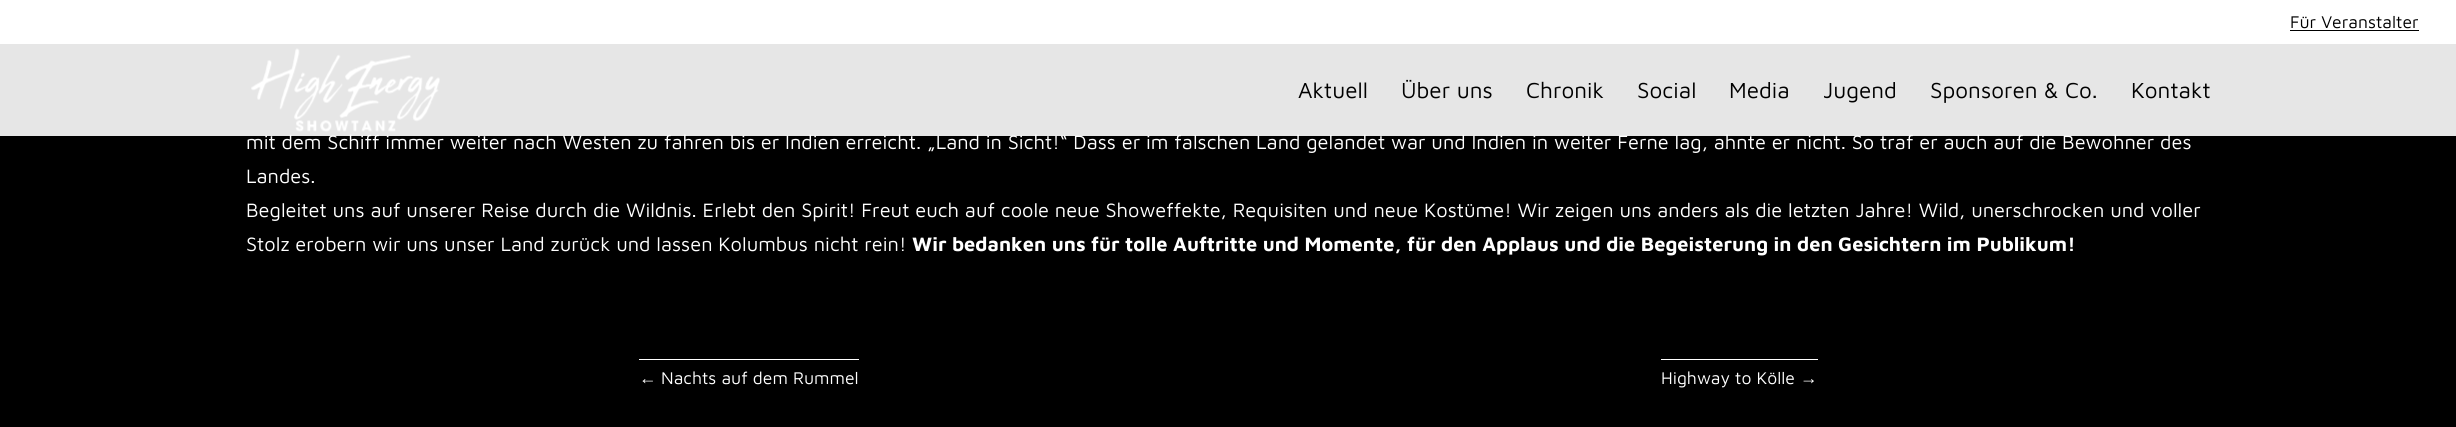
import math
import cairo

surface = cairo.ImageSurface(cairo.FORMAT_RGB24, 2456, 427)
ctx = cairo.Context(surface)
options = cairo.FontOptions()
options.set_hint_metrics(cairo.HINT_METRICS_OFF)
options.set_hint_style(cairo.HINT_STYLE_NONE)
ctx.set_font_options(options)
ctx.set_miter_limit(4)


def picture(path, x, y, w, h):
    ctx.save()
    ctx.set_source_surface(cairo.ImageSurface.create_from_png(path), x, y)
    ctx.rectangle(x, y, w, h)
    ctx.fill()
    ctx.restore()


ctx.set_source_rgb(0, 0, 0)
ctx.paint()
ctx.set_source_rgb(1, 1, 1)
ctx.rectangle(0, 0, 2456, 44)
ctx.fill()
ctx.select_font_face("Maven Pro")
ctx.set_font_size(17.5)
ctx.set_source_rgb(0, 0, 0)
ctx.move_to(2290, 28)
ctx.show_text("Für Veranstalter")
ctx.rectangle(2290, 30, 129, 1)
ctx.fill()
ctx.set_font_size(20)
ctx.set_source_rgb(1, 1, 1)
ctx.move_to(246, 149)
ctx.show_text("mit dem Schiff immer weiter nach Westen zu fahren bis er Indien erreicht. „Land in Sicht!“ Dass er im falschen Land gelandet war und Indien in weiter Ferne lag, ahnte er nicht. So traf er auch auf die Bewohner des")
ctx.set_source_rgba(1, 1, 1, 0.9)
ctx.rectangle(0, 44, 2456, 92)
ctx.fill()
picture("img1.png", 251, 48, 189, 84)
ctx.set_font_size(22.5)
ctx.set_source_rgb(0, 0, 0)
ctx.move_to(1298, 98)
ctx.show_text("Aktuell")
ctx.move_to(1401, 98)
ctx.show_text("Über uns")
ctx.move_to(1526, 98)
ctx.show_text("Chronik")
ctx.move_to(1637, 98)
ctx.show_text("Social")
ctx.move_to(1729, 98)
ctx.show_text("Media")
ctx.move_to(1823, 98)
ctx.show_text("Jugend")
ctx.move_to(1930, 98)
ctx.show_text("Sponsoren & Co.")
ctx.move_to(2131, 98)
ctx.show_text("Kontakt")
ctx.set_font_size(20)
ctx.set_source_rgb(1, 1, 1)
ctx.move_to(246, 183)
ctx.show_text("Landes.")
ctx.move_to(246, 217)
ctx.show_text("Begleitet uns auf unserer Reise durch die Wildnis. Erlebt den Spirit! Freut euch auf coole neue Showeffekte, Requisiten und neue Kostüme! Wir zeigen uns anders als die letzten Jahre! Wild, unerschrocken und voller")
ctx.move_to(246, 251)
ctx.show_text("Stolz erobern wir uns unser Land zurück und lassen Kolumbus nicht rein!")
ctx.select_font_face("Maven Pro", cairo.FONT_SLANT_NORMAL, cairo.FONT_WEIGHT_BOLD)
ctx.move_to(912, 251)
ctx.show_text("Wir bedanken uns für tolle Auftritte und Momente, für den Applaus und die Begeisterung in den Gesichtern im Publikum!")
ctx.rectangle(639, 359, 220, 1)
ctx.fill()
ctx.select_font_face("Liberation Sans")
ctx.set_font_size(17.5)
ctx.move_to(639, 384)
ctx.show_text("←")
ctx.select_font_face("Maven Pro")
ctx.move_to(661, 384)
ctx.show_text("Nachts auf dem Rummel")
ctx.rectangle(1661, 359, 157, 1)
ctx.fill()
ctx.move_to(1661, 384)
ctx.show_text("Highway to Kölle")
ctx.select_font_face("Liberation Sans")
ctx.move_to(1800, 384)
ctx.show_text("→")
surface.write_to_png("page.png")
